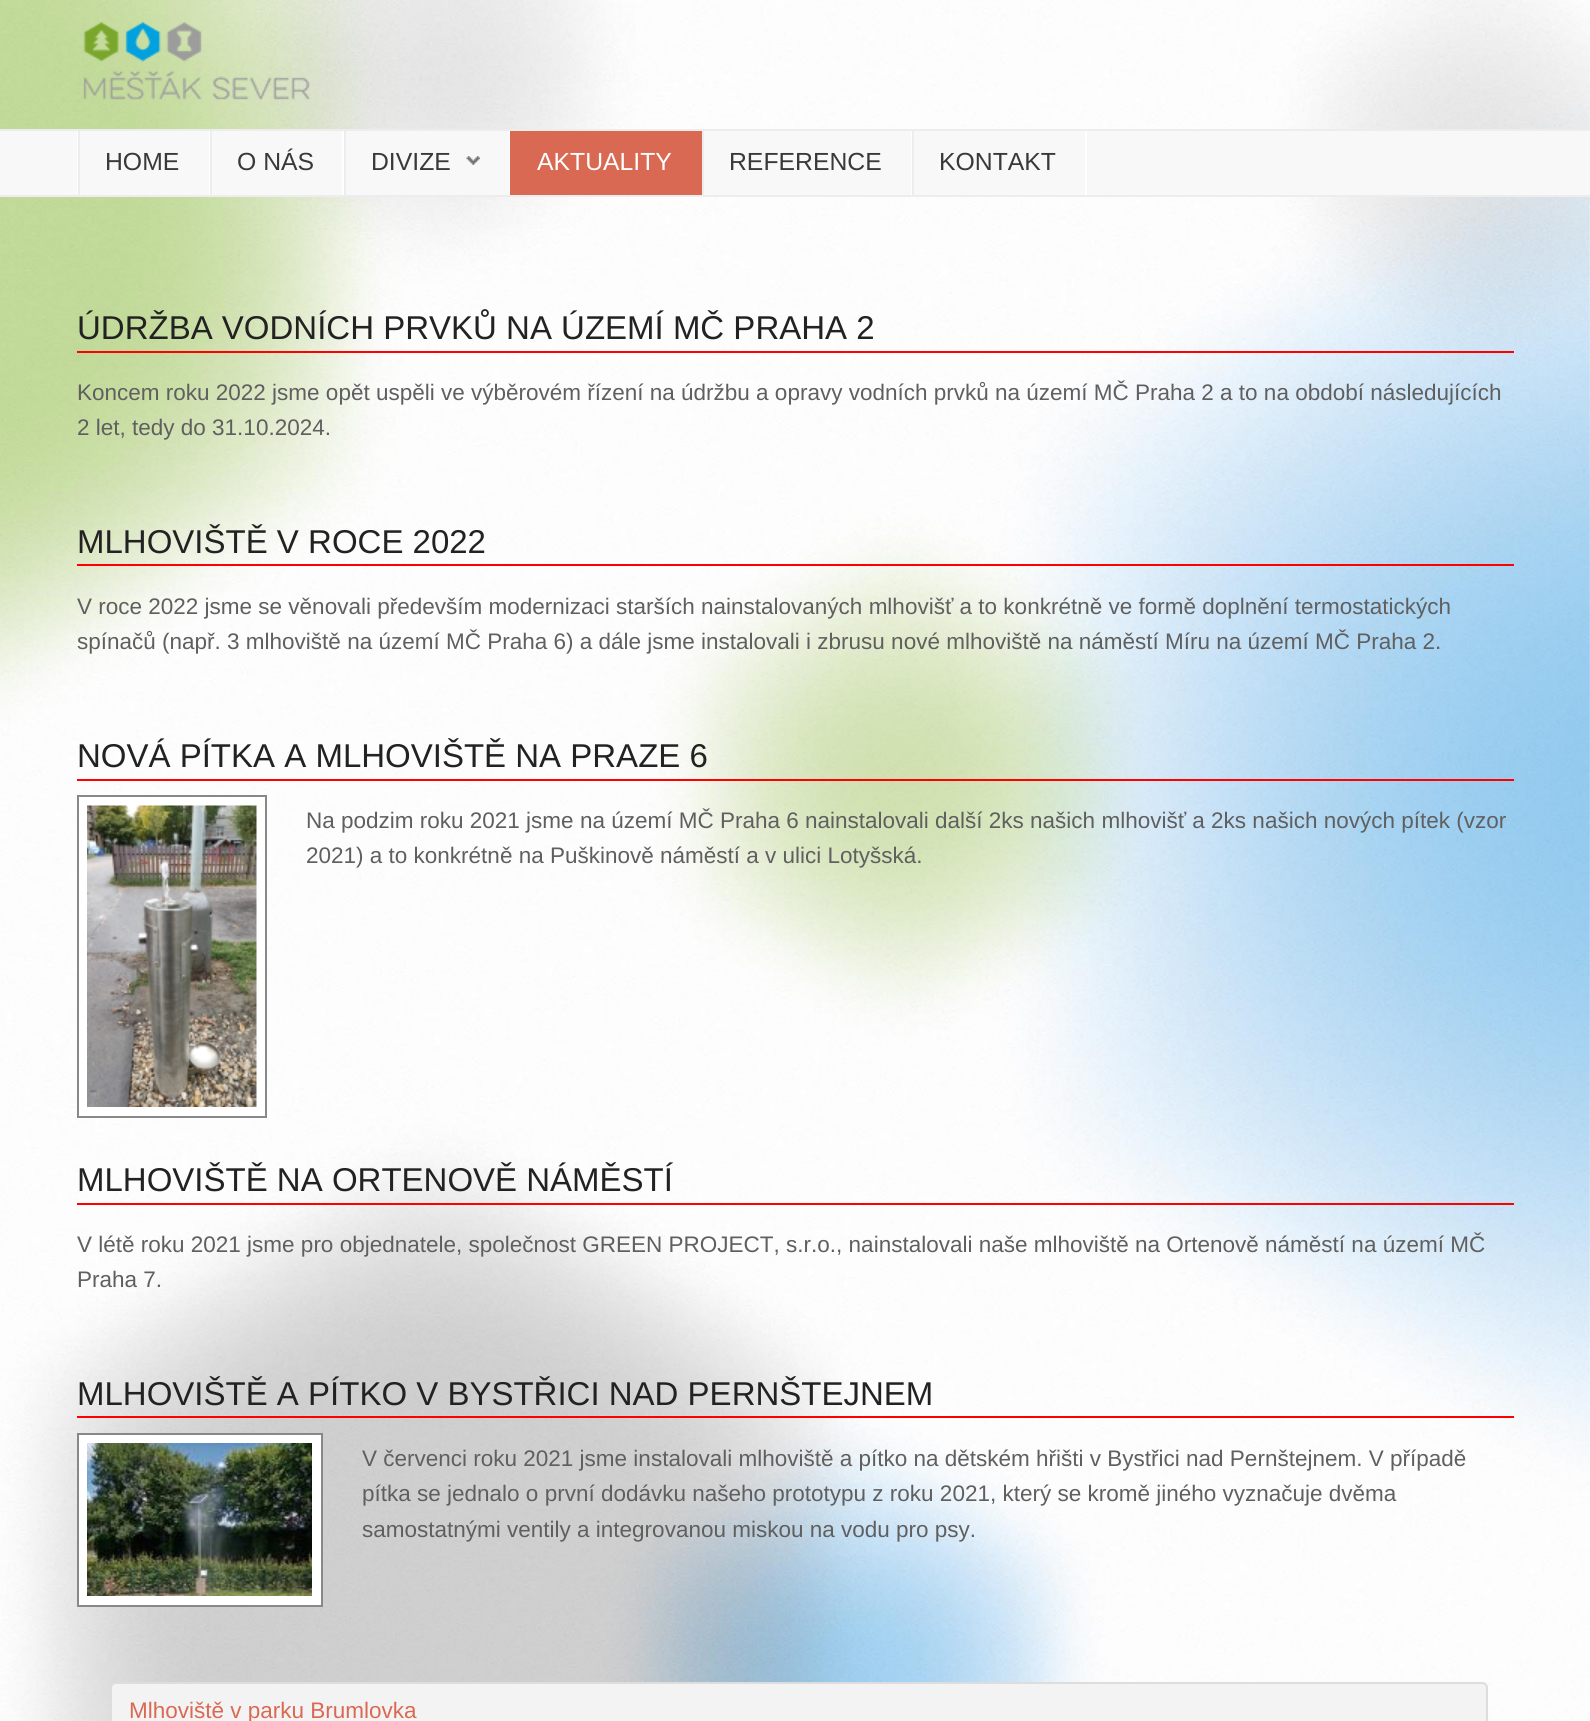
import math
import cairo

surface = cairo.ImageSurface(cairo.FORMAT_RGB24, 1590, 1721)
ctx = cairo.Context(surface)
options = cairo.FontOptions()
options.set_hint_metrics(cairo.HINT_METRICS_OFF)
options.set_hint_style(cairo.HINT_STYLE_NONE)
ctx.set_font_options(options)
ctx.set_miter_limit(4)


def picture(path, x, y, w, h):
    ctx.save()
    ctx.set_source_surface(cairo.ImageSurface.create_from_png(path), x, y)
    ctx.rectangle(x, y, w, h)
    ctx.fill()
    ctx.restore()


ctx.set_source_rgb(1, 1, 1)
ctx.paint()
picture("img1.png", 0, 0, 1590, 1721)
picture("img2.png", 83, 22, 227, 78)
ctx.set_source_rgb(0.973, 0.969, 0.969)
ctx.rectangle(0, 131, 1590, 64)
ctx.fill()
ctx.set_source_rgb(0.933, 0.929, 0.929)
ctx.rectangle(0, 129, 1590, 2)
ctx.fill()
ctx.rectangle(0, 195, 1590, 2)
ctx.fill()
ctx.set_source_rgb(1, 1, 1)
ctx.rectangle(77, 131, 1, 64)
ctx.fill()
ctx.rectangle(209, 131, 1, 64)
ctx.fill()
ctx.set_source_rgb(0.933, 0.929, 0.929)
ctx.rectangle(78, 131, 2, 64)
ctx.fill()
ctx.select_font_face("Liberation Sans")
ctx.set_font_size(24.75)
ctx.set_source_rgb(0.224, 0.224, 0.224)
ctx.move_to(105, 170)
ctx.show_text("HOME")
ctx.set_source_rgb(1, 1, 1)
ctx.rectangle(342, 131, 2, 64)
ctx.fill()
ctx.set_source_rgb(0.933, 0.929, 0.929)
ctx.rectangle(210, 131, 2, 64)
ctx.fill()
ctx.set_source_rgb(0.224, 0.224, 0.224)
ctx.move_to(237, 170)
ctx.show_text("O NÁS")
ctx.set_source_rgb(1, 1, 1)
ctx.rectangle(509, 131, 1, 64)
ctx.fill()
ctx.set_source_rgb(0.933, 0.929, 0.929)
ctx.rectangle(344, 131, 2, 64)
ctx.fill()
ctx.set_source_rgb(0.224, 0.224, 0.224)
ctx.move_to(371, 170)
ctx.show_text("DIVIZE")
picture("img3.png", 466, 156, 14, 9)
ctx.set_source_rgb(0.851, 0.412, 0.325)
ctx.rectangle(510, 131, 192, 64)
ctx.fill()
ctx.set_source_rgb(1, 1, 1)
ctx.move_to(537, 170)
ctx.show_text("AKTUALITY")
ctx.rectangle(911, 131, 1, 64)
ctx.fill()
ctx.set_source_rgb(0.933, 0.929, 0.929)
ctx.rectangle(702, 131, 2, 64)
ctx.fill()
ctx.set_source_rgb(0.224, 0.224, 0.224)
ctx.move_to(729, 170)
ctx.show_text("REFERENCE")
ctx.set_source_rgb(1, 1, 1)
ctx.rectangle(1085, 131, 2, 64)
ctx.fill()
ctx.set_source_rgb(0.933, 0.929, 0.929)
ctx.rectangle(912, 131, 2, 64)
ctx.fill()
ctx.set_source_rgb(0.224, 0.224, 0.224)
ctx.move_to(939, 170)
ctx.show_text("KONTAKT")
ctx.set_source_rgb(1, 0, 0)
ctx.rectangle(77, 351, 1437, 2)
ctx.fill()
ctx.set_font_size(33)
ctx.set_source_rgb(0.133, 0.133, 0.133)
ctx.move_to(77, 339)
ctx.show_text("ÚDRŽBA VODNÍCH PRVKŮ NA ÚZEMÍ MČ PRAHA 2")
ctx.set_font_size(22.5)
ctx.set_source_rgb(0.373, 0.373, 0.373)
ctx.move_to(77, 400)
ctx.show_text("Koncem roku 2022 jsme opět uspěli ve výběrovém řízení na údržbu a opravy vodních prvků na území MČ Praha 2 a to na období následujících")
ctx.move_to(77, 435)
ctx.show_text("2 let, tedy do 31.10.2024.")
ctx.set_source_rgb(1, 0, 0)
ctx.rectangle(77, 564, 1437, 2)
ctx.fill()
ctx.set_font_size(33)
ctx.set_source_rgb(0.133, 0.133, 0.133)
ctx.move_to(77, 553)
ctx.show_text("MLHOVIŠTĚ V ROCE 2022")
ctx.set_font_size(22.5)
ctx.set_source_rgb(0.373, 0.373, 0.373)
ctx.move_to(77, 614)
ctx.show_text("V roce 2022 jsme se věnovali především modernizaci starších nainstalovaných mlhovišť a to konkrétně ve formě doplnění termostatických")
ctx.move_to(77, 649)
ctx.show_text("spínačů (např. 3 mlhoviště na území MČ Praha 6) a dále jsme instalovali i zbrusu nové mlhoviště na náměstí Míru na území MČ Praha 2.")
ctx.set_source_rgb(1, 0, 0)
ctx.rectangle(77, 779, 1437, 2)
ctx.fill()
ctx.set_font_size(33)
ctx.set_source_rgb(0.133, 0.133, 0.133)
ctx.move_to(77, 767)
ctx.show_text("NOVÁ PÍTKA A MLHOVIŠTĚ NA PRAZE 6")
ctx.set_source_rgb(1, 1, 1)
ctx.rectangle(78, 796, 188, 321)
ctx.fill_preserve()
ctx.set_source_rgb(0.533, 0.533, 0.533)
ctx.stroke()
picture("img4.png", 87, 805, 170, 302)
ctx.set_font_size(22.5)
ctx.set_source_rgb(0.373, 0.373, 0.373)
ctx.move_to(306, 828)
ctx.show_text("Na podzim roku 2021 jsme na území MČ Praha 6 nainstalovali další 2ks našich mlhovišť a 2ks našich nových pítek (vzor")
ctx.move_to(306, 863)
ctx.show_text("2021) a to konkrétně na Puškinově náměstí a v ulici Lotyšská.")
ctx.set_source_rgb(1, 0, 0)
ctx.rectangle(77, 1203, 1437, 2)
ctx.fill()
ctx.set_font_size(33)
ctx.set_source_rgb(0.133, 0.133, 0.133)
ctx.move_to(77, 1191)
ctx.show_text("MLHOVIŠTĚ NA ORTENOVĚ NÁMĚSTÍ")
ctx.set_font_size(22.5)
ctx.set_source_rgb(0.373, 0.373, 0.373)
ctx.move_to(77, 1252)
ctx.show_text("V létě roku 2021 jsme pro objednatele, společnost GREEN PROJECT, s.r.o., nainstalovali naše mlhoviště na Ortenově náměstí na území MČ")
ctx.move_to(77, 1287)
ctx.show_text("Praha 7.")
ctx.set_source_rgb(1, 0, 0)
ctx.rectangle(77, 1416, 1437, 2)
ctx.fill()
ctx.set_font_size(33)
ctx.set_source_rgb(0.133, 0.133, 0.133)
ctx.move_to(77, 1405)
ctx.show_text("MLHOVIŠTĚ A PÍTKO V BYSTŘICI NAD PERNŠTEJNEM")
ctx.set_source_rgb(1, 1, 1)
ctx.rectangle(78, 1434, 244, 172)
ctx.fill_preserve()
ctx.set_source_rgb(0.533, 0.533, 0.533)
ctx.stroke()
picture("img5.png", 87, 1443, 225, 153)
ctx.set_font_size(22.5)
ctx.set_source_rgb(0.373, 0.373, 0.373)
ctx.move_to(362, 1466)
ctx.show_text("V červenci roku 2021 jsme instalovali mlhoviště a pítko na dětském hřišti v Bystřici nad Pernštejnem. V případě")
ctx.move_to(362, 1501)
ctx.show_text("pítka se jednalo o první dodávku našeho prototypu z roku 2021, který se kromě jiného vyznačuje dvěma")
ctx.move_to(362, 1537)
ctx.show_text("samostatnými ventily a integrovanou miskou na vodu pro psy.")
ctx.set_source_rgb(0.953, 0.953, 0.953)
ctx.new_path()
ctx.move_to(116, 1683)
ctx.line_to(1482, 1683)
ctx.curve_to(1485, 1683, 1487, 1685, 1487, 1688)
ctx.line_to(1487, 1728)
ctx.line_to(111, 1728)
ctx.line_to(111, 1688)
ctx.curve_to(111, 1685, 113, 1683, 116, 1683)
ctx.close_path()
ctx.fill_preserve()
ctx.set_source_rgb(0.867, 0.867, 0.867)
ctx.stroke()
ctx.set_source_rgb(0.851, 0.412, 0.325)
ctx.move_to(129, 1718)
ctx.show_text("Mlhoviště v parku Brumlovka")
surface.write_to_png("page.png")
